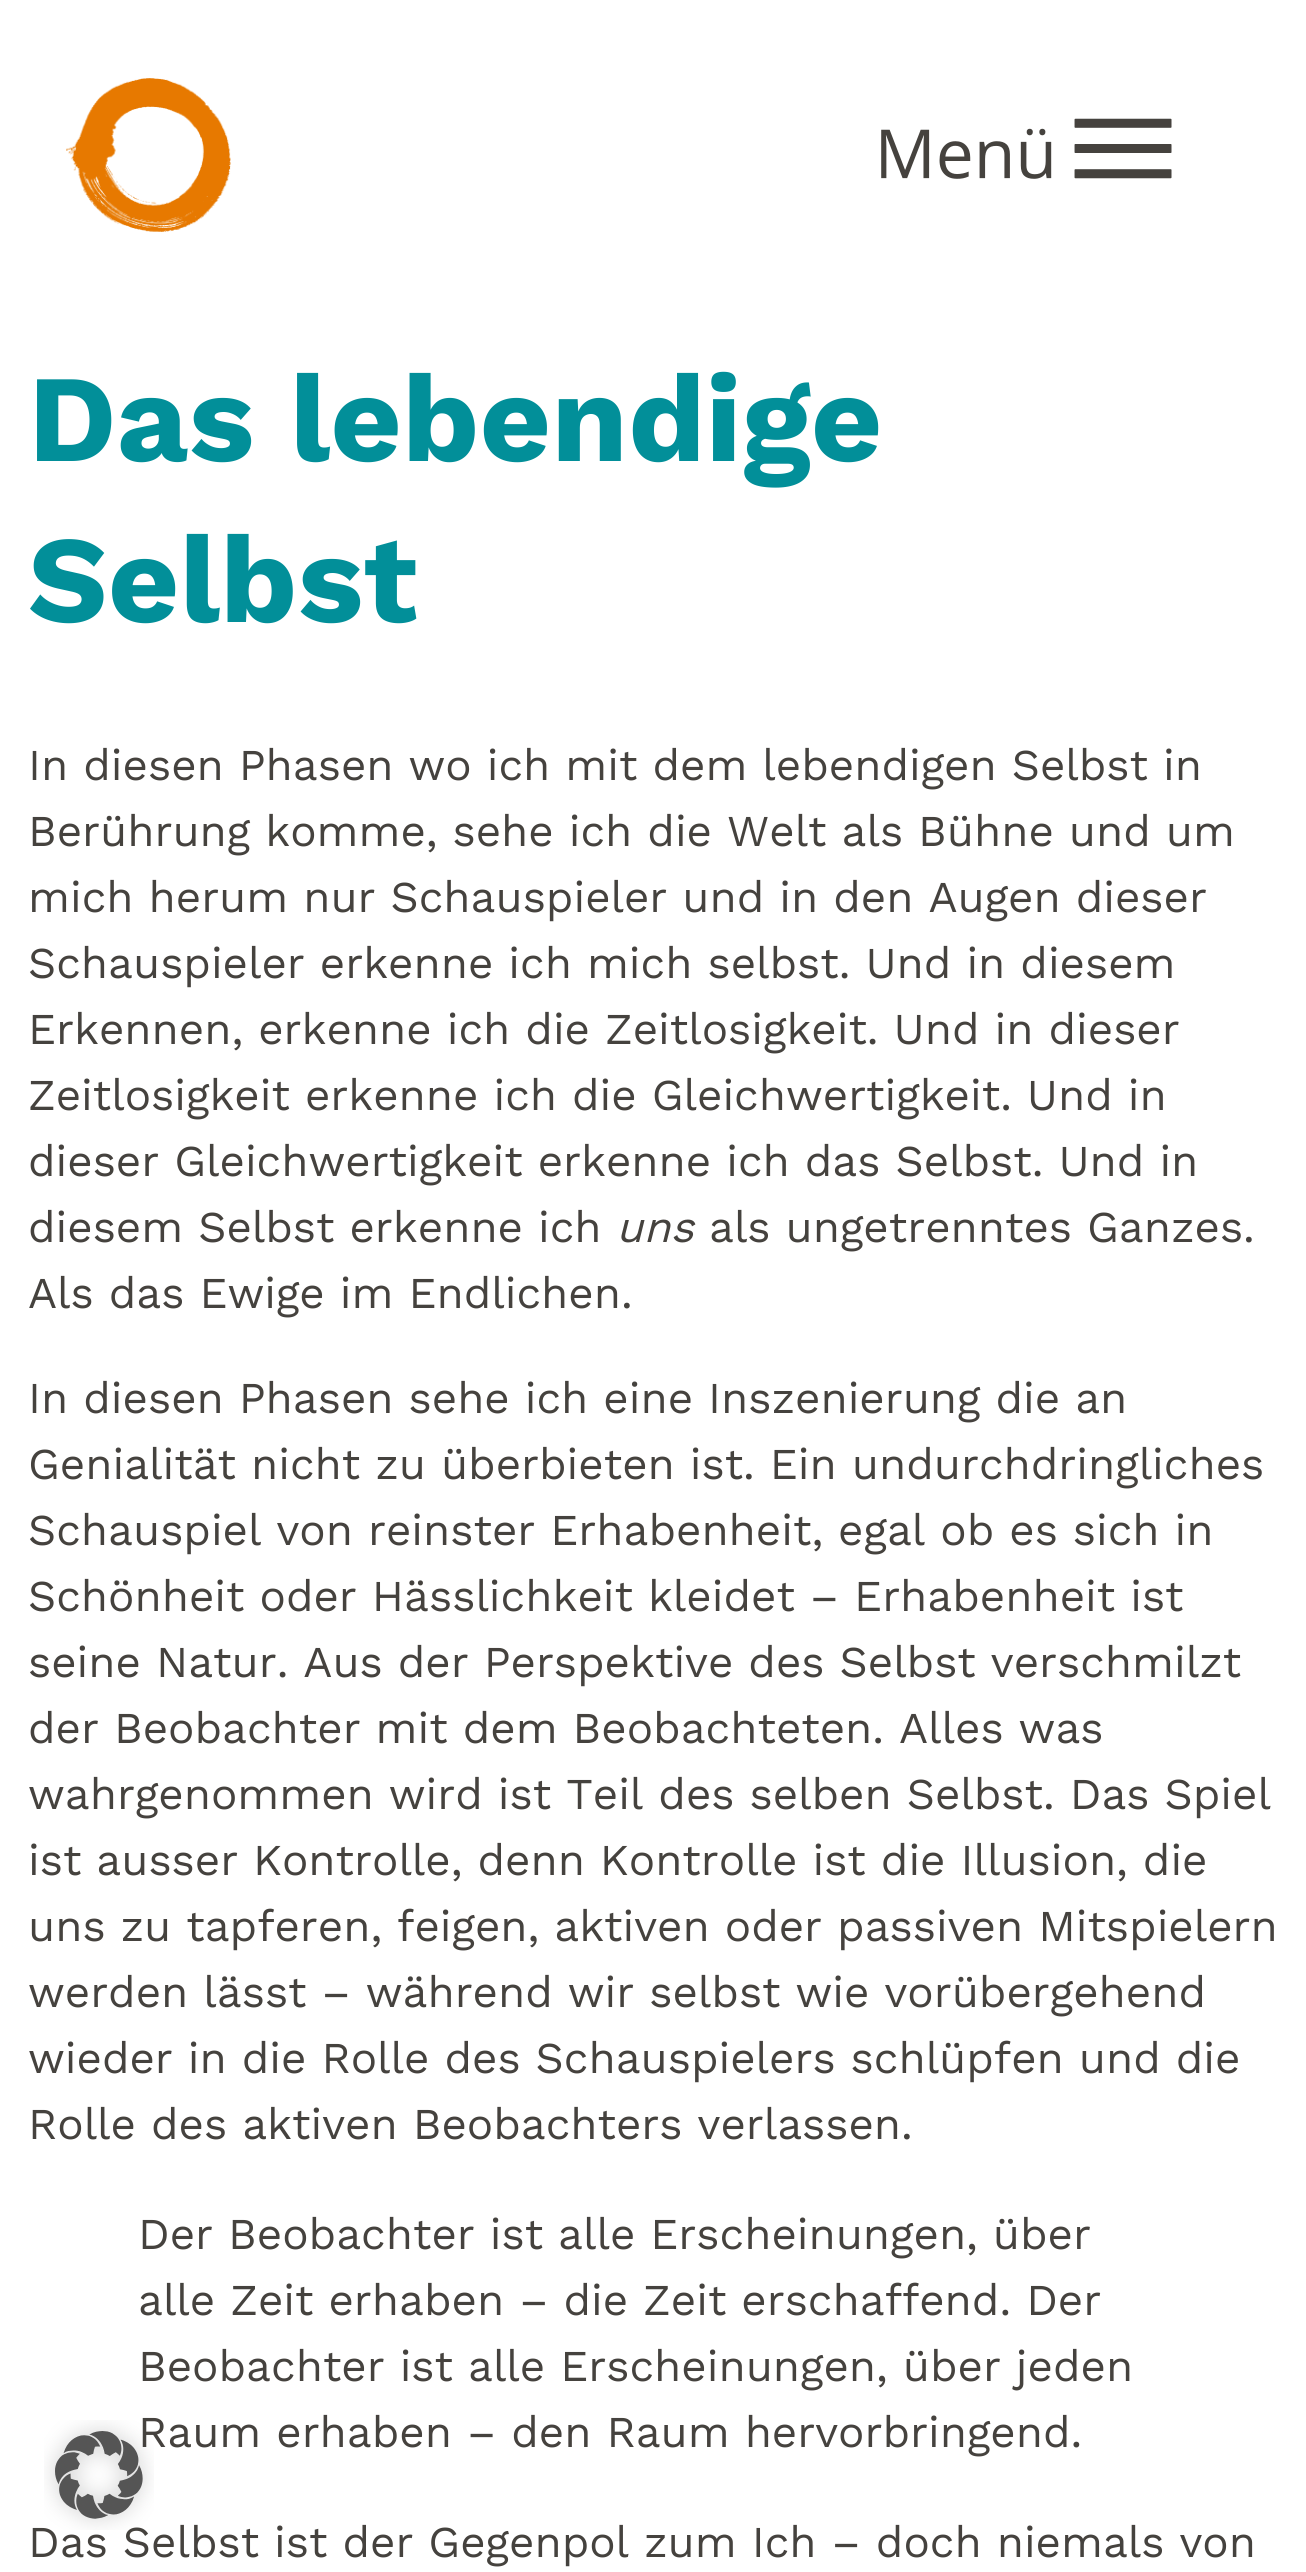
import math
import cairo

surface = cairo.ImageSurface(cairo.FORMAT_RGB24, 1306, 2572)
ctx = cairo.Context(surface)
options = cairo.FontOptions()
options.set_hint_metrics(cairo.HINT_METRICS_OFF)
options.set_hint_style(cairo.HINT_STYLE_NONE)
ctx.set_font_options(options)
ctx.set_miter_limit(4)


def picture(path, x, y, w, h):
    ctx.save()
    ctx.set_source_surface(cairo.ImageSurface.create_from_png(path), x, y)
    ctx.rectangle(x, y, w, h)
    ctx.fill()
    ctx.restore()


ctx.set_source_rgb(1, 1, 1)
ctx.paint()
picture("img1.png", 66, 78, 165, 154)
picture("img2.png", 881, 118, 291, 61)
ctx.select_font_face("Work Sans", cairo.FONT_SLANT_NORMAL, cairo.FONT_WEIGHT_BOLD)
ctx.set_font_size(123.75)
ctx.set_source_rgb(0.008, 0.561, 0.6)
ctx.move_to(28, 461)
ctx.show_text("Das lebendige")
ctx.move_to(28, 622)
ctx.show_text("Selbst")
ctx.select_font_face("Work Sans")
ctx.set_font_size(44)
ctx.set_source_rgb(0.271, 0.259, 0.243)
ctx.move_to(28, 780)
ctx.show_text("In diesen Phasen wo ich mit dem lebendigen Selbst in")
ctx.move_to(28, 846)
ctx.show_text("Berührung komme, sehe ich die Welt als Bühne und um")
ctx.move_to(28, 912)
ctx.show_text("mich herum nur Schauspieler und in den Augen dieser")
ctx.move_to(28, 978)
ctx.show_text("Schauspieler erkenne ich mich selbst. Und in diesem")
ctx.move_to(28, 1044)
ctx.show_text("Erkennen, erkenne ich die Zeitlosigkeit. Und in dieser")
ctx.move_to(28, 1110)
ctx.show_text("Zeitlosigkeit erkenne ich die Gleichwertigkeit. Und in")
ctx.move_to(28, 1176)
ctx.show_text("dieser Gleichwertigkeit erkenne ich das Selbst. Und in")
ctx.move_to(28, 1242)
ctx.show_text("diesem Selbst erkenne ich")
ctx.select_font_face("Work Sans", cairo.FONT_SLANT_ITALIC)
ctx.move_to(616, 1242)
ctx.show_text("uns")
ctx.select_font_face("Work Sans")
ctx.move_to(709, 1242)
ctx.show_text("als ungetrenntes Ganzes.")
ctx.move_to(28, 1308)
ctx.show_text("Als das Ewige im Endlichen.")
ctx.move_to(28, 1413)
ctx.show_text("In diesen Phasen sehe ich eine Inszenierung die an")
ctx.move_to(28, 1479)
ctx.show_text("Genialität nicht zu überbieten ist. Ein undurchdringliches")
ctx.move_to(28, 1545)
ctx.show_text("Schauspiel von reinster Erhabenheit, egal ob es sich in")
ctx.move_to(28, 1611)
ctx.show_text("Schönheit oder Hässlichkeit kleidet – Erhabenheit ist")
ctx.move_to(28, 1677)
ctx.show_text("seine Natur. Aus der Perspektive des Selbst verschmilzt")
ctx.move_to(28, 1743)
ctx.show_text("der Beobachter mit dem Beobachteten. Alles was")
ctx.move_to(28, 1809)
ctx.show_text("wahrgenommen wird ist Teil des selben Selbst. Das Spiel")
ctx.move_to(28, 1875)
ctx.show_text("ist ausser Kontrolle, denn Kontrolle ist die Illusion, die")
ctx.move_to(28, 1941)
ctx.show_text("uns zu tapferen, feigen, aktiven oder passiven Mitspielern")
ctx.move_to(28, 2007)
ctx.show_text("werden lässt – während wir selbst wie vorübergehend")
ctx.move_to(28, 2073)
ctx.show_text("wieder in die Rolle des Schauspielers schlüpfen und die")
ctx.move_to(28, 2139)
ctx.show_text("Rolle des aktiven Beobachters verlassen.")
ctx.move_to(138, 2249)
ctx.show_text("Der Beobachter ist alle Erscheinungen, über")
ctx.move_to(138, 2315)
ctx.show_text("alle Zeit erhaben – die Zeit erschaffend. Der")
ctx.move_to(138, 2381)
ctx.show_text("Beobachter ist alle Erscheinungen, über jeden")
ctx.move_to(138, 2447)
ctx.show_text("Raum erhaben – den Raum hervorbringend.")
ctx.move_to(28, 2557)
ctx.show_text("Das Selbst ist der Gegenpol zum Ich – doch niemals von")
picture("img3.png", 44, 2420, 110, 110)
surface.write_to_png("page.png")
